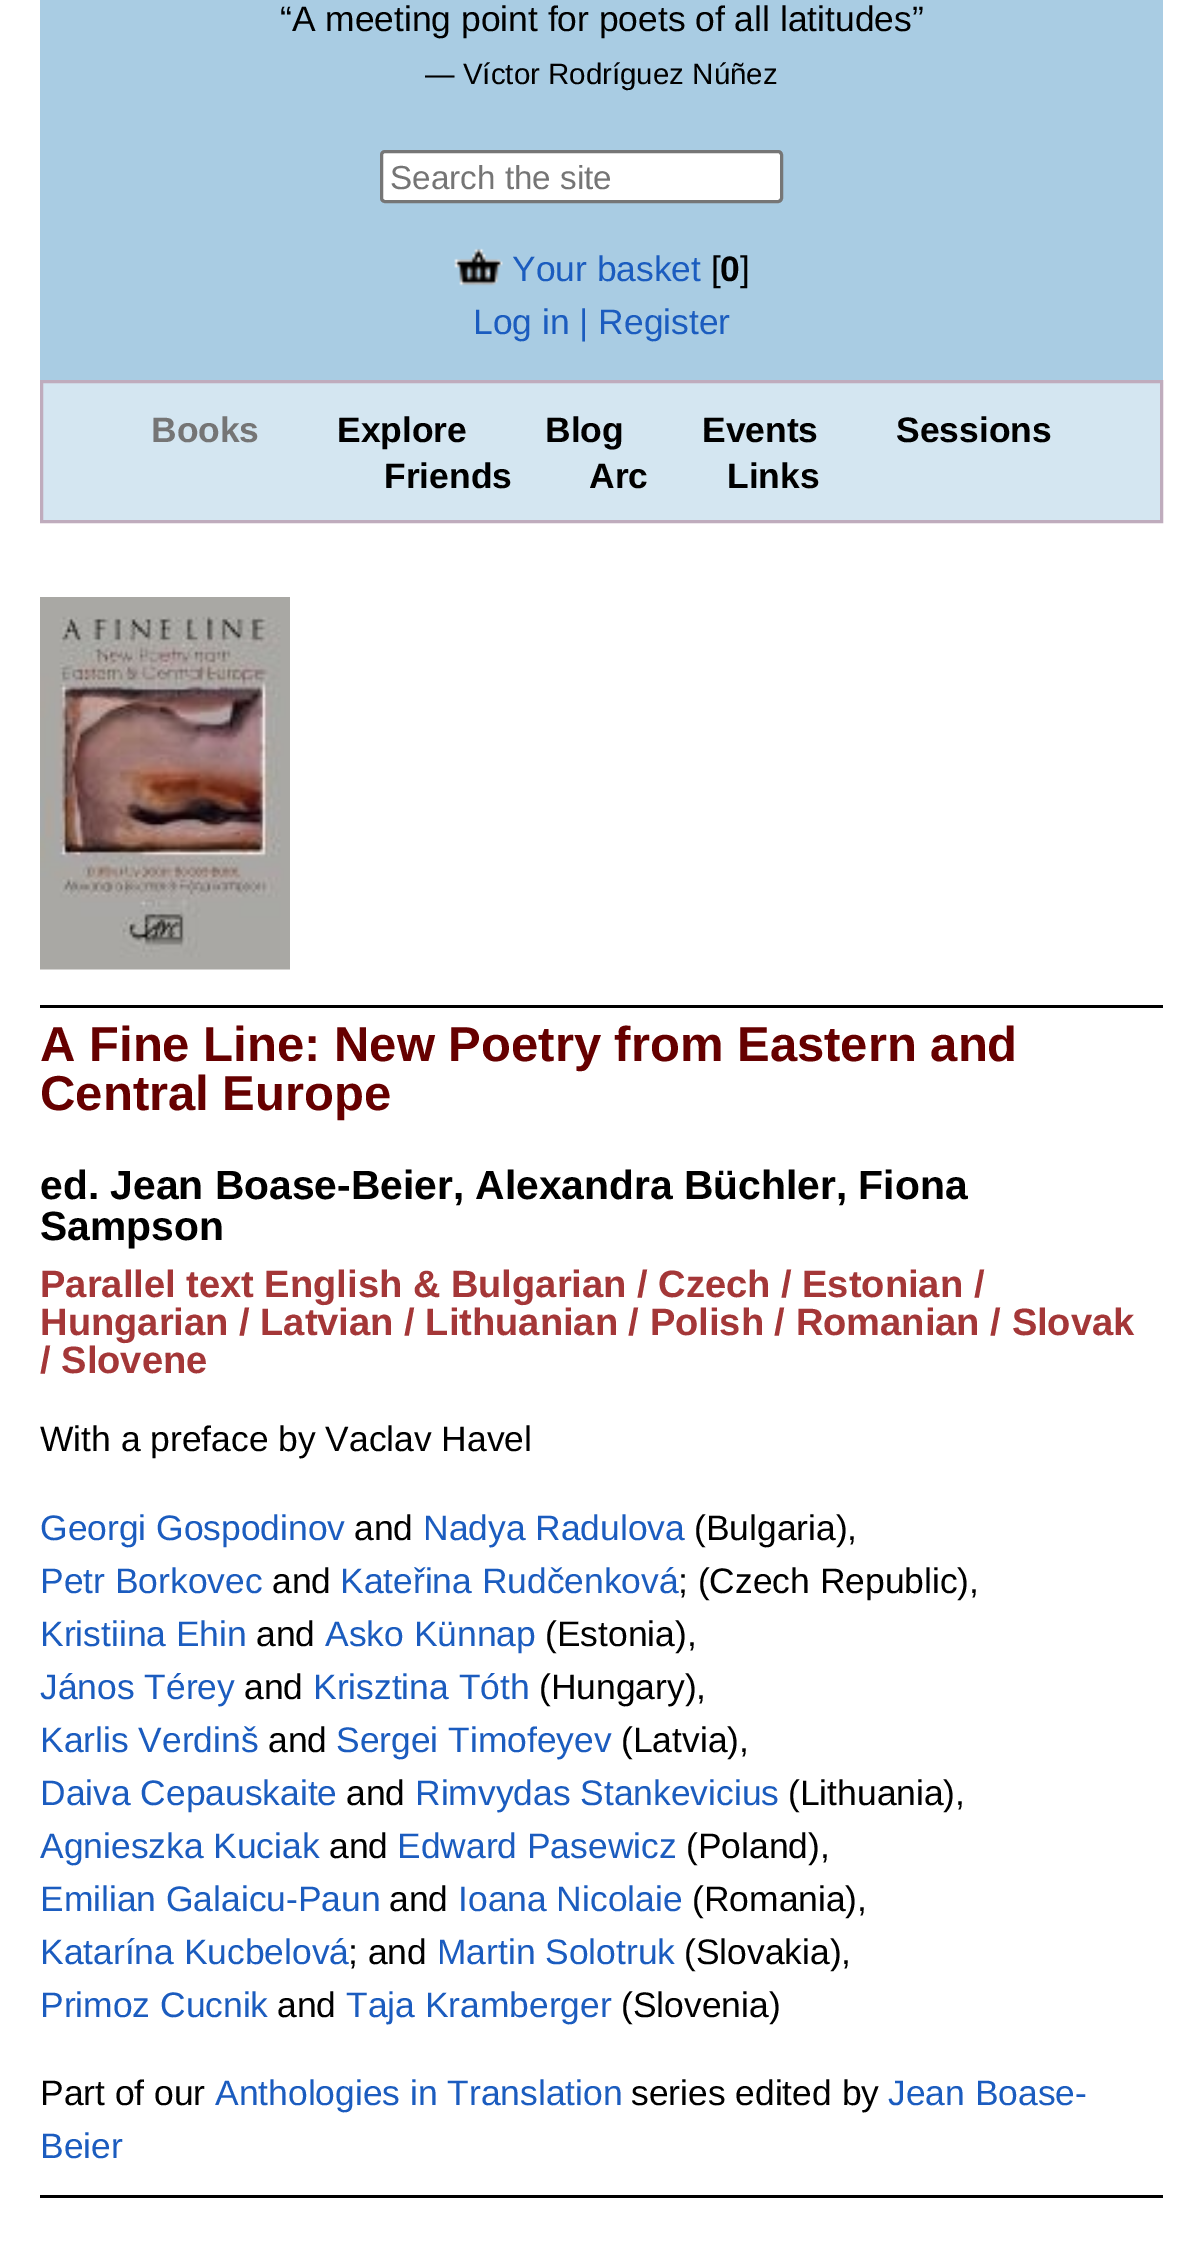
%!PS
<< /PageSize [1202 2251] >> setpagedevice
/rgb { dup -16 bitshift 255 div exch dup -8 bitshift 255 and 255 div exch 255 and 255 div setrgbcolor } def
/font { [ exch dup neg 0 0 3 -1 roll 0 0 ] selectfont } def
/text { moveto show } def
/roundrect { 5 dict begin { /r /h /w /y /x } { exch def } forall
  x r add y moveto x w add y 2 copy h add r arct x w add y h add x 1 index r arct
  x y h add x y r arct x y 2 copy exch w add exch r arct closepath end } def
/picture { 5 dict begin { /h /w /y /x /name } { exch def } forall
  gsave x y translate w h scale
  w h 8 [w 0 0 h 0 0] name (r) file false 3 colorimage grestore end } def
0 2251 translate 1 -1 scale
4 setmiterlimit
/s1 { /LiberationSans-Regular 35.4 font 16#000000 rgb } def
/s2 { /LiberationSans-Regular 29.5 font 16#000000 rgb } def
/s3 { /LiberationSans-Regular 33.25 font 16#757575 rgb } def
/s4 { /LiberationSans-Regular 35.4 font 16#1B5CBF rgb } def
/s5 { /LiberationSans-Bold 35.4 font 16#000000 rgb } def
/s6 { /LiberationSans-Bold 35.4 font 16#757575 rgb } def
/s7 { /LiberationSans-Bold 49 font 16#660000 rgb } def
/s8 { /LiberationSans-Bold 40.8 font 16#000000 rgb } def
/s9 { /LiberationSans-Bold 38.1 font 16#A43738 rgb } def
16#FFFFFF rgb
0 0 1202 2251 rectfill
16#A9CCE3 rgb
40 0 1123 380 rectfill
s1
(“A meeting point for poets of all latitudes”) 280 31 text
s2
(— Víctor Rodríguez Núñez) 425 84 text
16#FFFFFF rgb
381.5 151.5 400 50 3.5 roundrect gsave fill grestore
16#767676 rgb
3 setlinewidth
stroke
s3
(Search the site) 390 189 text
(pic1.raw) 454 248 49 38 picture
s4
(Your basket) 512 281 text
s1
([) 711 281 text
s5
(0) 720 281 text
s1
(]) 740 281 text
s4
(Log in | Register) 473 334 text
16#D4E6F1 rgb
41.5 381.5 moveto 1161.5 381.5 lineto 1161.5 521.5 lineto 41.5 521.5 lineto closepath gsave fill grestore
16#BFACBD rgb
stroke
s6
(Books) 151 442 text
s5
(Explore) 337 442 text
(Blog) 545 442 text
(Events) 702 442 text
(Sessions) 896 442 text
(Friends) 384 488 text
(Arc) 589 488 text
(Links) 727 488 text
(pic2.raw) 40 597 250 373 picture
40 1005 1123 3 rectfill
40 2195 1123 3 rectfill
s7
(A Fine Line: New Poetry from Eastern and) 40 1061 text
(Central Europe) 40 1110 text
s8
(ed. Jean Boase-Beier, Alexandra Büchler, Fiona) 40 1199 text
(Sampson) 40 1240 text
s9
(Parallel text English & Bulgarian / Czech / Estonian /) 40 1297 text
(Hungarian / Latvian / Lithuanian / Polish / Romanian / Slovak) 40 1335 text
(/ Slovene) 40 1373 text
s1
(With a preface by Vaclav Havel) 40 1451 text
s4
(Georgi Gospodinov) 40 1540 text
s1
(and) 354 1540 text
s4
(Nadya Radulova) 423 1540 text
s1
(\(Bulgaria\),) 694 1540 text
s4
(Petr Borkovec) 40 1593 text
s1
(and) 272 1593 text
s4
(Kateřina Rudčenková) 340 1593 text
s1
(; \(Czech Republic\),) 678 1593 text
s4
(Kristiina Ehin) 40 1646 text
s1
(and) 256 1646 text
s4
(Asko Künnap) 325 1646 text
s1
(\(Estonia\),) 545 1646 text
s4
(János Térey) 40 1699 text
s1
(and) 244 1699 text
s4
(Krisztina Tóth) 313 1699 text
s1
(\(Hungary\),) 539 1699 text
s4
(Karlis Verdinš) 40 1752 text
s1
(and) 268 1752 text
s4
(Sergei Timofeyev) 336 1752 text
s1
(\(Latvia\),) 621 1752 text
s4
(Daiva Cepauskaite) 40 1805 text
s1
(and) 346 1805 text
s4
(Rimvydas Stankevicius) 415 1805 text
s1
(\(Lithuania\),) 788 1805 text
s4
(Agnieszka Kuciak) 40 1858 text
s1
(and) 329 1858 text
s4
(Edward Pasewicz) 397 1858 text
s1
(\(Poland\),) 686 1858 text
s4
(Emilian Galaicu-Paun) 40 1911 text
s1
(and) 389 1911 text
s4
(Ioana Nicolaie) 458 1911 text
s1
(\(Romania\),) 692 1911 text
s4
(Katarína Kucbelová) 40 1964 text
s1
(; and) 348 1964 text
s4
(Martin Solotruk) 437 1964 text
s1
(\(Slovakia\),) 684 1964 text
s4
(Primoz Cucnik) 40 2017 text
s1
(and) 277 2017 text
s4
(Taja Kramberger) 346 2017 text
s1
(\(Slovenia\)) 621 2017 text
(Part of our) 40 2105 text
s4
(Anthologies in Translation) 215 2105 text
s1
(series edited by) 631 2105 text
s4
(Jean Boase-) 888 2105 text
(Beier) 40 2158 text
showpage
